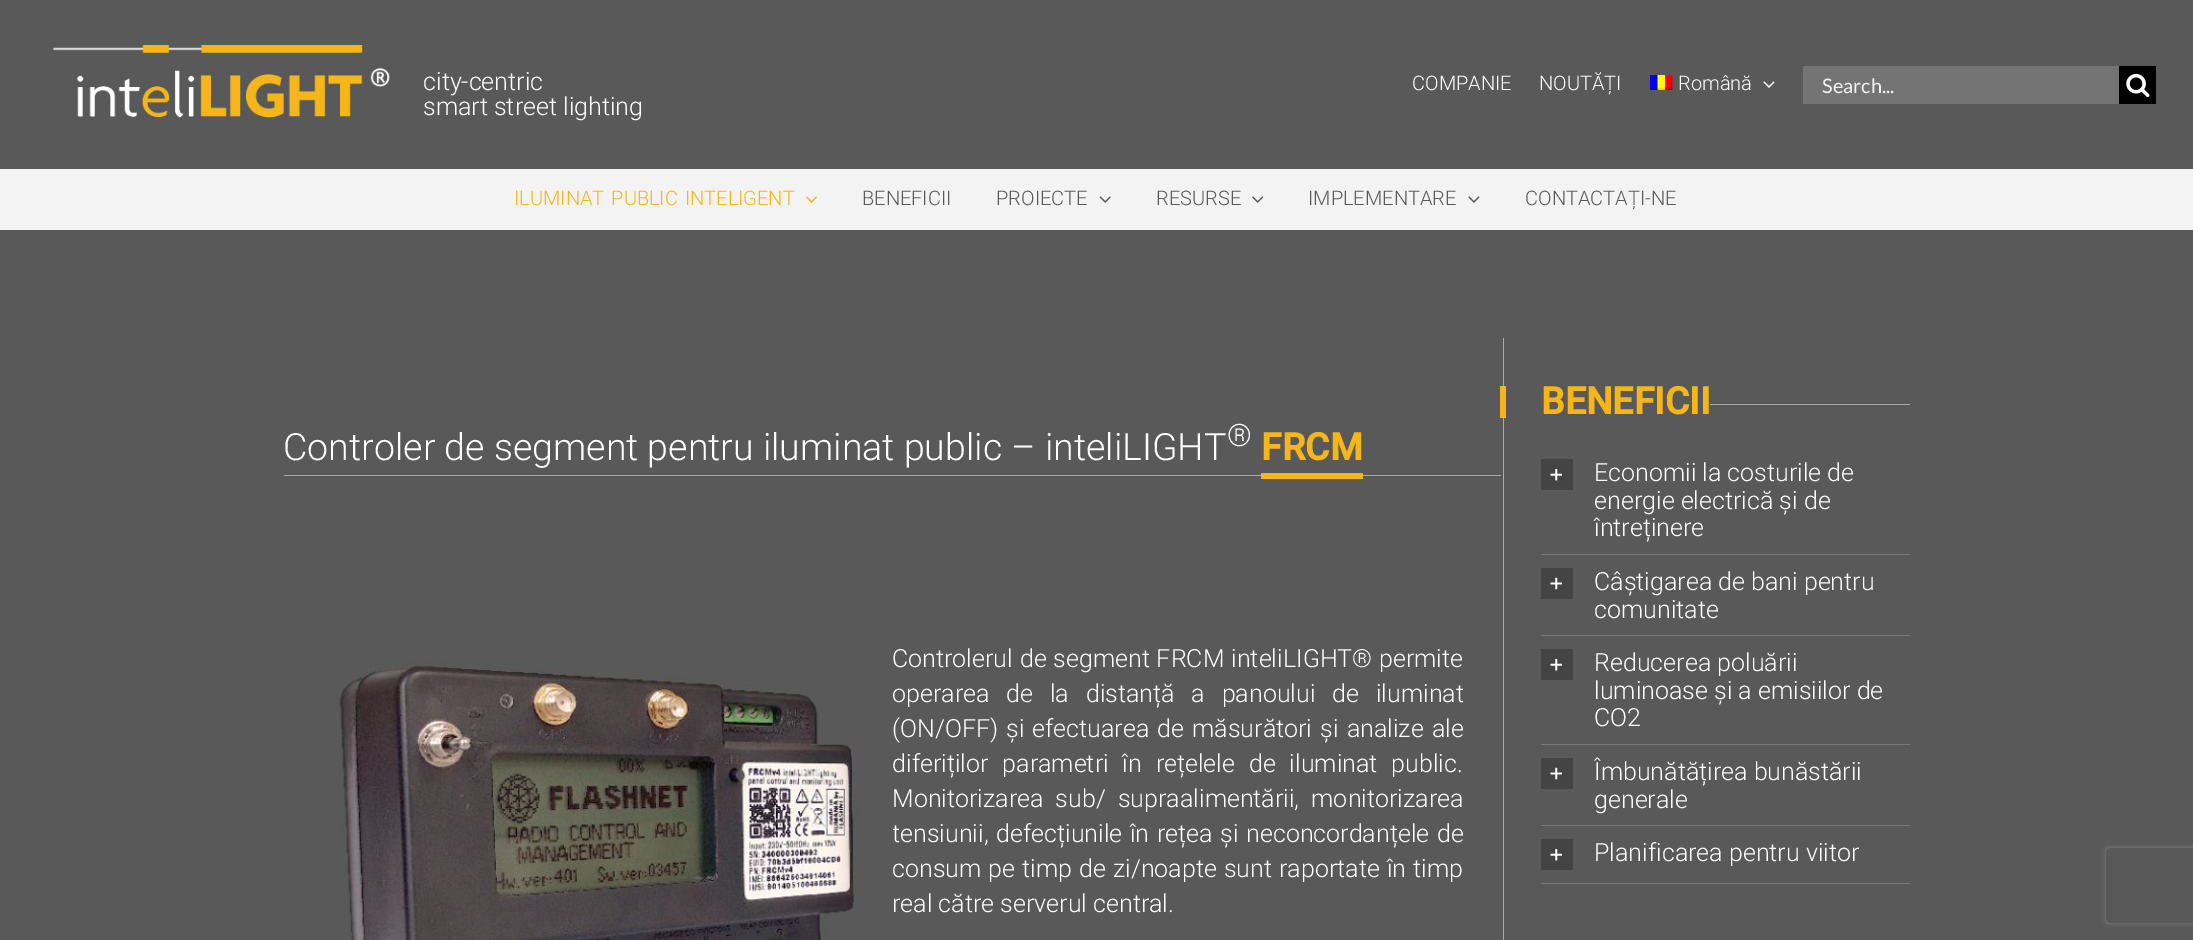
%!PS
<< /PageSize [2193 940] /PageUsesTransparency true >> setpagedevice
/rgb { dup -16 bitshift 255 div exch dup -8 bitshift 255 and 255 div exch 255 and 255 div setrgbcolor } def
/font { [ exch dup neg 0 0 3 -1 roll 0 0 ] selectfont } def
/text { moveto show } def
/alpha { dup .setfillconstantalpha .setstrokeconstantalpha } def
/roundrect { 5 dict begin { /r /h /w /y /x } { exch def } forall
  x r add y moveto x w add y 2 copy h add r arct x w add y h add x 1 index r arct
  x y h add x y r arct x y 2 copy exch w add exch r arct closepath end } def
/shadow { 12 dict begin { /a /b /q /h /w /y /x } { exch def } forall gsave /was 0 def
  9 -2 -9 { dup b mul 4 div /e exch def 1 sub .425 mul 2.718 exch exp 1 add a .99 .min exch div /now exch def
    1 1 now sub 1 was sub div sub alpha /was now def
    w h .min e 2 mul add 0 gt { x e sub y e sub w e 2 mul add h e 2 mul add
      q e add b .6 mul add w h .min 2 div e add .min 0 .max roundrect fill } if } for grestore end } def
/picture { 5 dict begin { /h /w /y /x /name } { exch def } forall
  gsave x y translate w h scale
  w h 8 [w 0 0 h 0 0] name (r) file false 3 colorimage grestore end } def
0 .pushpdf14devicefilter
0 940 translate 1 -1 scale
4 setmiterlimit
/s1 { /Roboto-Light 25 font 16#FFFFFF rgb } def
/s2 { /Roboto-Light 20 font 16#FFFFFF rgb } def
/s3 { /Lato-Regular 20 font 16#F3F3F3 rgb } def
/s4 { /Roboto-Light 20 font 16#595959 rgb } def
/s5 { /Roboto-Light 37.5 font 16#FFFFFF rgb } def
/s6 { /Roboto-Light 31 font 16#FFFFFF rgb } def
/s7 { /Roboto-Bold 37.5 font 16#F5B61A rgb } def
16#595959 rgb
0 0 2193 940 rectfill
(pic1.raw) 53 42 337 76 picture
s1
(city-centric) 423 90 text
(smart street lighting) 423 115 text
s2
(COMPANIE) 1412 90 text
(NOUTĂȚI) 1539 90 text
(pic2.raw) 1650 75 23 15 picture
(Română) 1678 90 text
(pic3.raw) 1763 81 12 7 picture
16#747474 rgb
1803 66 316 38 rectfill
s3
(Search...) 1822 93 text
16#000000 rgb
2119 66 37 38 rectfill
(pic4.raw) 2126 73 24 25 picture
16#F3F3F3 rgb
0 169 2193 61 rectfill
/Roboto-Light 20 font
16#F5B61A rgb
514 205 moveto 2 0 32 (ILUMINAT PUBLIC INTELIGENT) widthshow
(pic5.raw) 805 196 12 7 picture
s4
(BENEFICII) 862 205 text
(PROIECTE) 996 205 text
(pic6.raw) 1099 196 12 7 picture
(RESURSE) 1156 205 text
(pic7.raw) 1252 196 12 7 picture
(IMPLEMENTARE) 1308 205 text
(pic8.raw) 1468 196 12 7 picture
(CONTACTAȚI-NE) 1525 205 text
16#ABABAB rgb
1503 338 1 602 rectfill
s5
(Controler de segment pentru iluminat public – inteliLIGHT) 283 460 text
s6
(®) 1227 446 text
s7
(FRCM) 1261 460 text
16#ABABAB rgb
284 475 1217 1 rectfill
16#F5B61A rgb
1261 473 102 6 rectfill
/Roboto-Light 25 font
16#FFFFFF rgb
892 702 moveto 10.75 0 32 (operarea de la distanță a panoului de iluminat) widthshow
892 842 moveto 1.5 0 32 (tensiunii, defecțiunile în rețea și neconcordanțele de) widthshow
(pic9.raw) 339 661 554 279 picture
892 667 moveto 0.75 0 32 (Controlerul de segment FRCM inteliLIGHT® permite) widthshow
892 737 moveto 2 0 32 (\(ON/OFF\) și efectuarea de măsurători și analize ale) widthshow
892 772 moveto 7.75 0 32 (diferiților parametri în rețelele de iluminat public.) widthshow
892 807 moveto 6 0 32 (Monitorizarea sub/ supraalimentării, monitorizarea) widthshow
892 877 moveto 1 0 32 (consum pe timp de zi/noapte sunt raportate în timp) widthshow
(real către serverul central.) 892 912 text
16#F5B61A rgb
1500 386 6 32 rectfill
s7
(BENEFICII) 1541 414 text
16#ABABAB rgb
1710 404 200 1 rectfill
16#777777 rgb
1541 554 369 1 rectfill
16#444444 rgb
1541 459 32 31 rectfill
(pic10.raw) 1550 469 12 12 picture
s1
(Economii la costurile de) 1594 481 text
(energie electrică și de) 1594 509 text
(întreținere) 1594 536 text
16#777777 rgb
1541 635 369 1 rectfill
16#444444 rgb
1541 568 32 31 rectfill
(pic11.raw) 1550 577 12 13 picture
s1
(Câștigarea de bani pentru) 1594 590 text
(comunitate) 1594 618 text
16#777777 rgb
1541 744 369 1 rectfill
16#444444 rgb
1541 649 32 31 rectfill
(pic10.raw) 1550 659 12 12 picture
s1
(Reducerea poluării) 1594 671 text
(luminoase și a emisiilor de) 1594 699 text
(CO2) 1594 726 text
16#777777 rgb
1541 825 369 1 rectfill
16#444444 rgb
1541 758 32 31 rectfill
(pic11.raw) 1550 767 12 13 picture
s1
(Îmbunătățirea bunăstării) 1594 780 text
(generale) 1594 808 text
16#777777 rgb
1541 883 369 1 rectfill
16#444444 rgb
1541 839 32 31 rectfill
(pic10.raw) 1550 849 12 12 picture
s1
(Planificarea pentru viitor) 1594 861 text
gsave
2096 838 moveto 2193 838 lineto 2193 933 lineto 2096 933 lineto closepath 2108.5 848 moveto 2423.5 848 lineto 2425 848 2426 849 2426 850.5 curveto 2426 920.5 lineto 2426 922 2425 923 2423.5 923 curveto 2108.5 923 lineto 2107 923 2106 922 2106 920.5 curveto 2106 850.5 lineto 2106 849 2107 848 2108.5 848 curveto closepath eoclip newpath
16#808080 rgb
2106 848 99 75 2.5 3 1 shadow
grestore
.poppdf14devicefilter showpage
